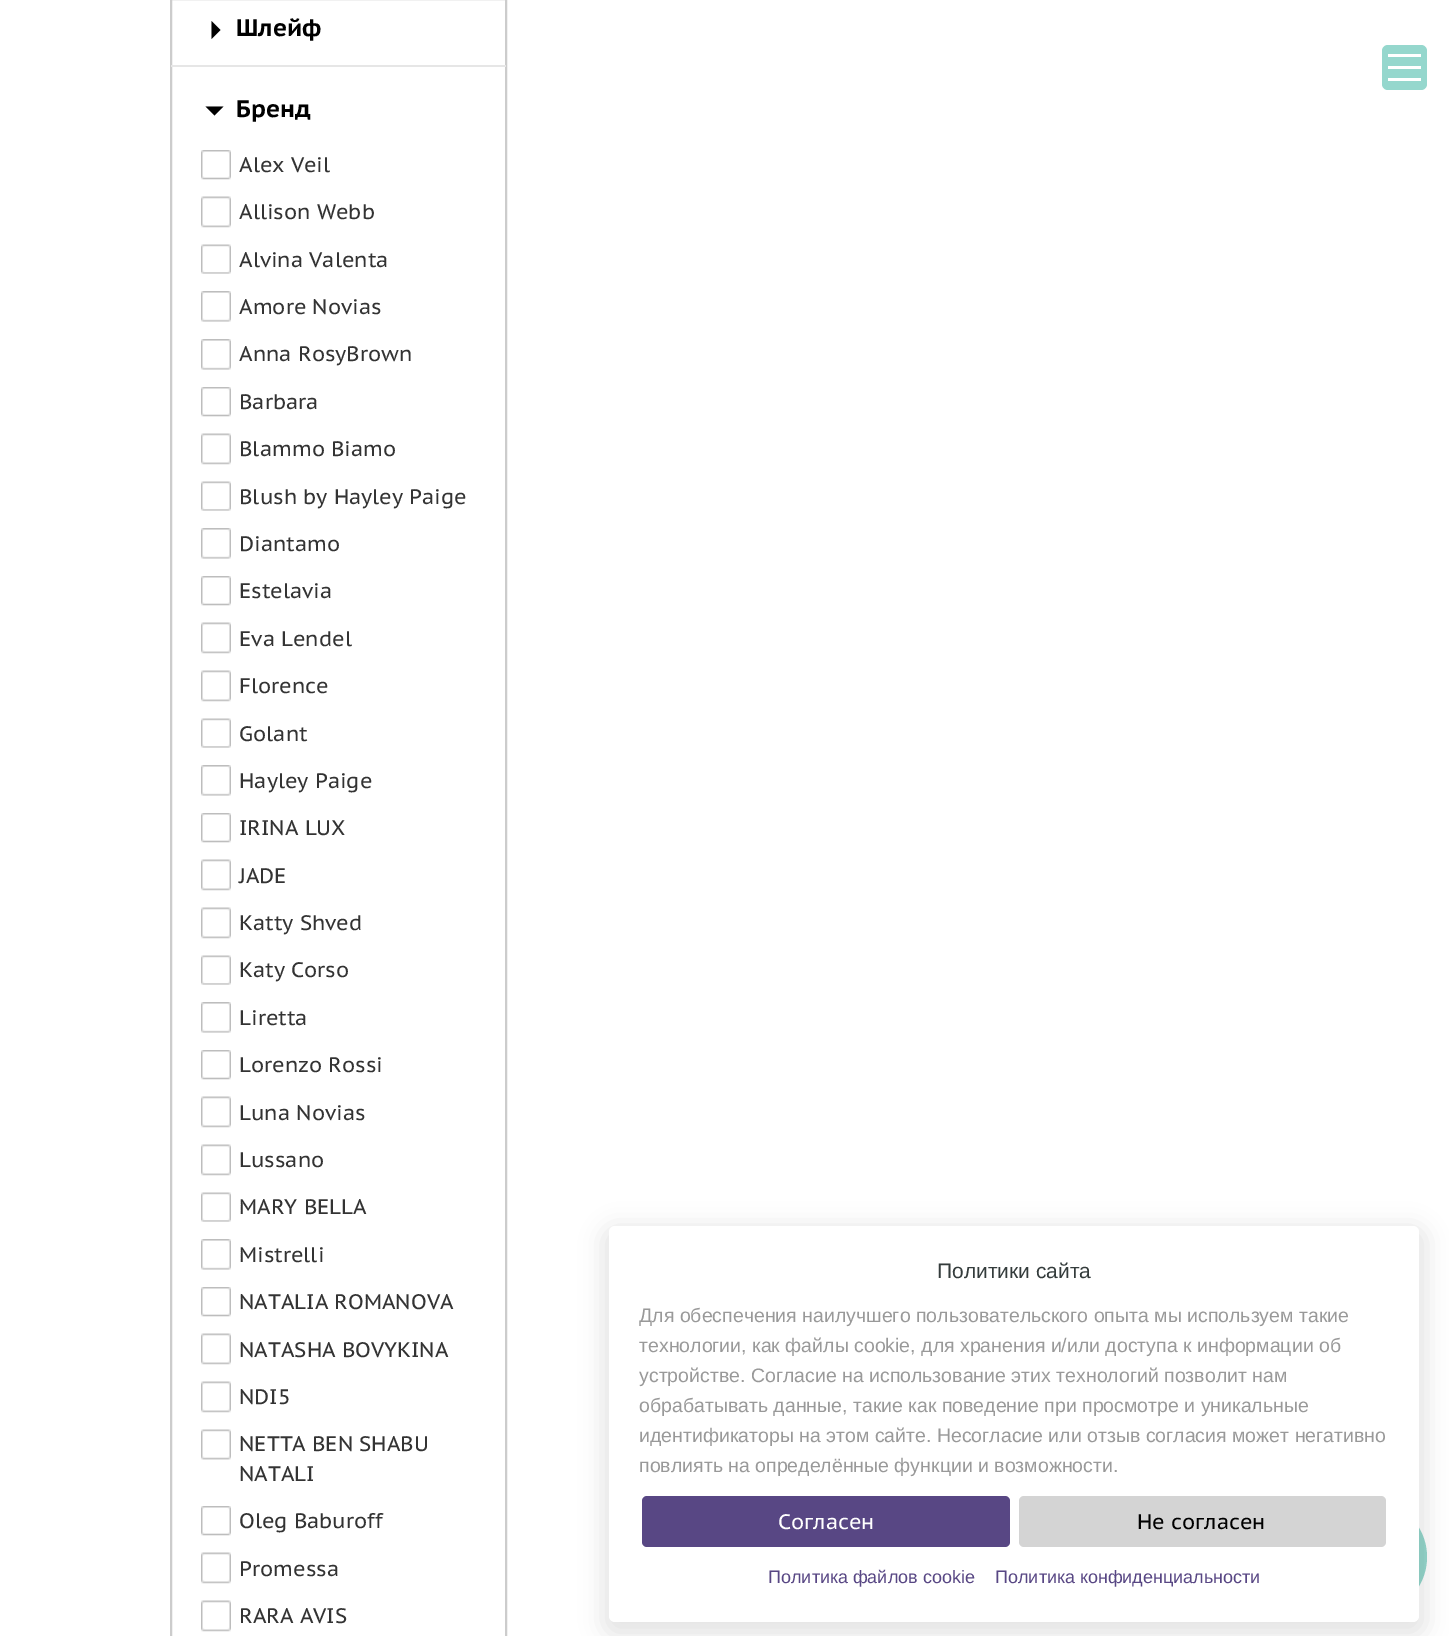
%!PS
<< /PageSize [1449 1636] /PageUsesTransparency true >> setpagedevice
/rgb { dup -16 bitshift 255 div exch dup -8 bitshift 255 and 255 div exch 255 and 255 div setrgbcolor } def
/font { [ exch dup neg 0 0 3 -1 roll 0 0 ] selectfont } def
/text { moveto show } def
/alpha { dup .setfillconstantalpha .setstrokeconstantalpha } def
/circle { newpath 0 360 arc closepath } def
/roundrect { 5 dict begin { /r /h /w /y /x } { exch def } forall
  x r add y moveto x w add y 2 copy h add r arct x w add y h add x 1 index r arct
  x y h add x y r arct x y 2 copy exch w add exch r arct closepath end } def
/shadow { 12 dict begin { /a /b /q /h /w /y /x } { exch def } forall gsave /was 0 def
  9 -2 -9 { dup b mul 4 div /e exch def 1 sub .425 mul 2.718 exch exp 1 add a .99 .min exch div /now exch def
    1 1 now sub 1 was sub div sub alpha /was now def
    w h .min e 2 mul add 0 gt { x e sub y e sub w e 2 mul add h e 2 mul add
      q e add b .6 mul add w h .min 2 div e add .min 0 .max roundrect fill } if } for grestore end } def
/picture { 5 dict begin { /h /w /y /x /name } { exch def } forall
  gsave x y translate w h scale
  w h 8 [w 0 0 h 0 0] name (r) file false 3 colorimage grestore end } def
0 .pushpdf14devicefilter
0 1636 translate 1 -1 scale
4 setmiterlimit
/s1 { /PTSansCaption-Bold 24 font 16#000000 rgb } def
/s2 { /PTSansCaption-Regular 21 font 16#333333 rgb } def
/s3 { /LiberationSans-Regular 21 font 16#343C3C rgb } def
/s4 { /LiberationSans-Regular 19.5 font 16#999999 rgb } def
/s5 { /PTSansCaption-Regular 21 font 16#FFFFFF rgb } def
/s6 { /PTSansCaption-Regular 21 font 16#000000 rgb } def
/s7 { /LiberationSans-Regular 18 font 16#584784 rgb } def
16#FFFFFF rgb
0 0 1449 1636 rectfill
16#CCCCCC rgb
2 setlinewidth
171 -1 335 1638 rectstroke
16#000000 rgb
211.5 39 moveto 211.5 21 lineto 220.5 30 lineto closepath fill
s1
(Шлейф) 236 36 text
16#E6E6E6 rgb
171 65 335 2 rectfill
16#000000 rgb
205.5 106.5 moveto 223.5 106.5 lineto 214.5 115.5 lineto closepath fill
(Бренд) 236 117 text
(pic1.raw) 201 150 30 30 picture
s2
(Alex Veil) 239 172 text
(pic2.raw) 201 196 30 32 picture
(Allison Webb) 239 219 text
(pic3.raw) 201 244 30 30 picture
(Alvina Valenta) 239 267 text
(pic4.raw) 201 291 30 31 picture
(Amore Novias) 239 314 text
(pic4.raw) 201 339 30 31 picture
(Anna RosyBrown) 239 361 text
(pic1.raw) 201 387 30 30 picture
(Barbara) 239 409 text
(pic2.raw) 201 433 30 32 picture
(Blammo Biamo) 239 456 text
(pic3.raw) 201 481 30 30 picture
(Blush by Hayley Paige) 239 504 text
(pic4.raw) 201 528 30 31 picture
(Diantamo) 239 551 text
(pic1.raw) 201 576 30 30 picture
(Estelavia) 239 598 text
(pic2.raw) 201 622 30 32 picture
(Eva Lendel) 239 646 text
(pic2.raw) 201 670 30 32 picture
(Florence) 239 693 text
(pic3.raw) 201 718 30 30 picture
(Golant) 239 741 text
(pic4.raw) 201 765 30 31 picture
(Hayley Paige) 239 788 text
(pic1.raw) 201 813 30 30 picture
(IRINA LUX) 239 835 text
(pic2.raw) 201 859 30 32 picture
(JADE) 239 883 text
(pic2.raw) 201 907 30 32 picture
(Katty Shved) 239 930 text
(pic3.raw) 201 955 30 30 picture
(Katy Corso) 239 977 text
(pic4.raw) 201 1002 30 31 picture
(Liretta) 239 1025 text
(pic1.raw) 201 1050 30 30 picture
(Lorenzo Rossi) 239 1072 text
(pic2.raw) 201 1096 30 32 picture
(Luna Novias) 239 1120 text
(pic2.raw) 201 1144 30 32 picture
(Lussano) 239 1167 text
(pic3.raw) 201 1192 30 30 picture
(MARY BELLA) 239 1214 text
(pic4.raw) 201 1239 30 31 picture
(Mistrelli) 239 1262 text
(pic1.raw) 201 1287 30 30 picture
(NATALIA ROMANOVA) 239 1309 text
(pic2.raw) 201 1333 30 32 picture
(NATASHA BOVYKINA) 239 1357 text
(pic2.raw) 201 1381 30 32 picture
(NDI5) 239 1404 text
(pic5.raw) 201 1429 30 31 picture
(NETTA BEN SHABU) 239 1451 text
(NATALI) 239 1481 text
(pic1.raw) 201 1506 30 30 picture
(Oleg Baburoff) 239 1528 text
(pic2.raw) 201 1552 30 32 picture
(Promessa) 239 1576 text
(pic2.raw) 201 1600 30 32 picture
(RARA AVIS) 239 1623 text
16#95D7CD rgb
1382 45 45 45 6 roundrect fill
16#FFFFFF rgb
1388 54 33 3 rectfill
1388 66 33 3 rectfill
1388 78 33 3 rectfill
16#95D7CD rgb
1370 1557 57 circle fill
16#000000 rgb
602 1226 825 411 14 11 0.1 shadow
16#FFFFFF rgb
609 1226 810 396 6 roundrect fill
s3
(Политики сайта) 937 1278 text
s4
(Для обеспечения наилучшего пользовательского опыта мы используем такие) 639 1322 text
(технологии, как файлы cookie, для хранения и/или доступа к информации об) 639 1352 text
(устройстве. Согласие на использование этих технологий позволит нам) 639 1382 text
(обрабатывать данные, такие как поведение при просмотре и уникальные) 639 1412 text
(идентификаторы на этом сайте. Несогласие или отзыв согласия может негативно) 639 1442 text
(повлиять на определённые функции и возможности.) 639 1472 text
16#584784 rgb
642 1496 368 51 5 roundrect fill
s5
(Согласен) 778 1529 text
16#D4D4D4 rgb
1019 1496 367 51 5 roundrect fill
s6
(Не согласен) 1137 1529 text
s7
(Политика файлов cookie) 768 1583 text
(Политика конфиденциальности) 995 1583 text
.poppdf14devicefilter showpage
